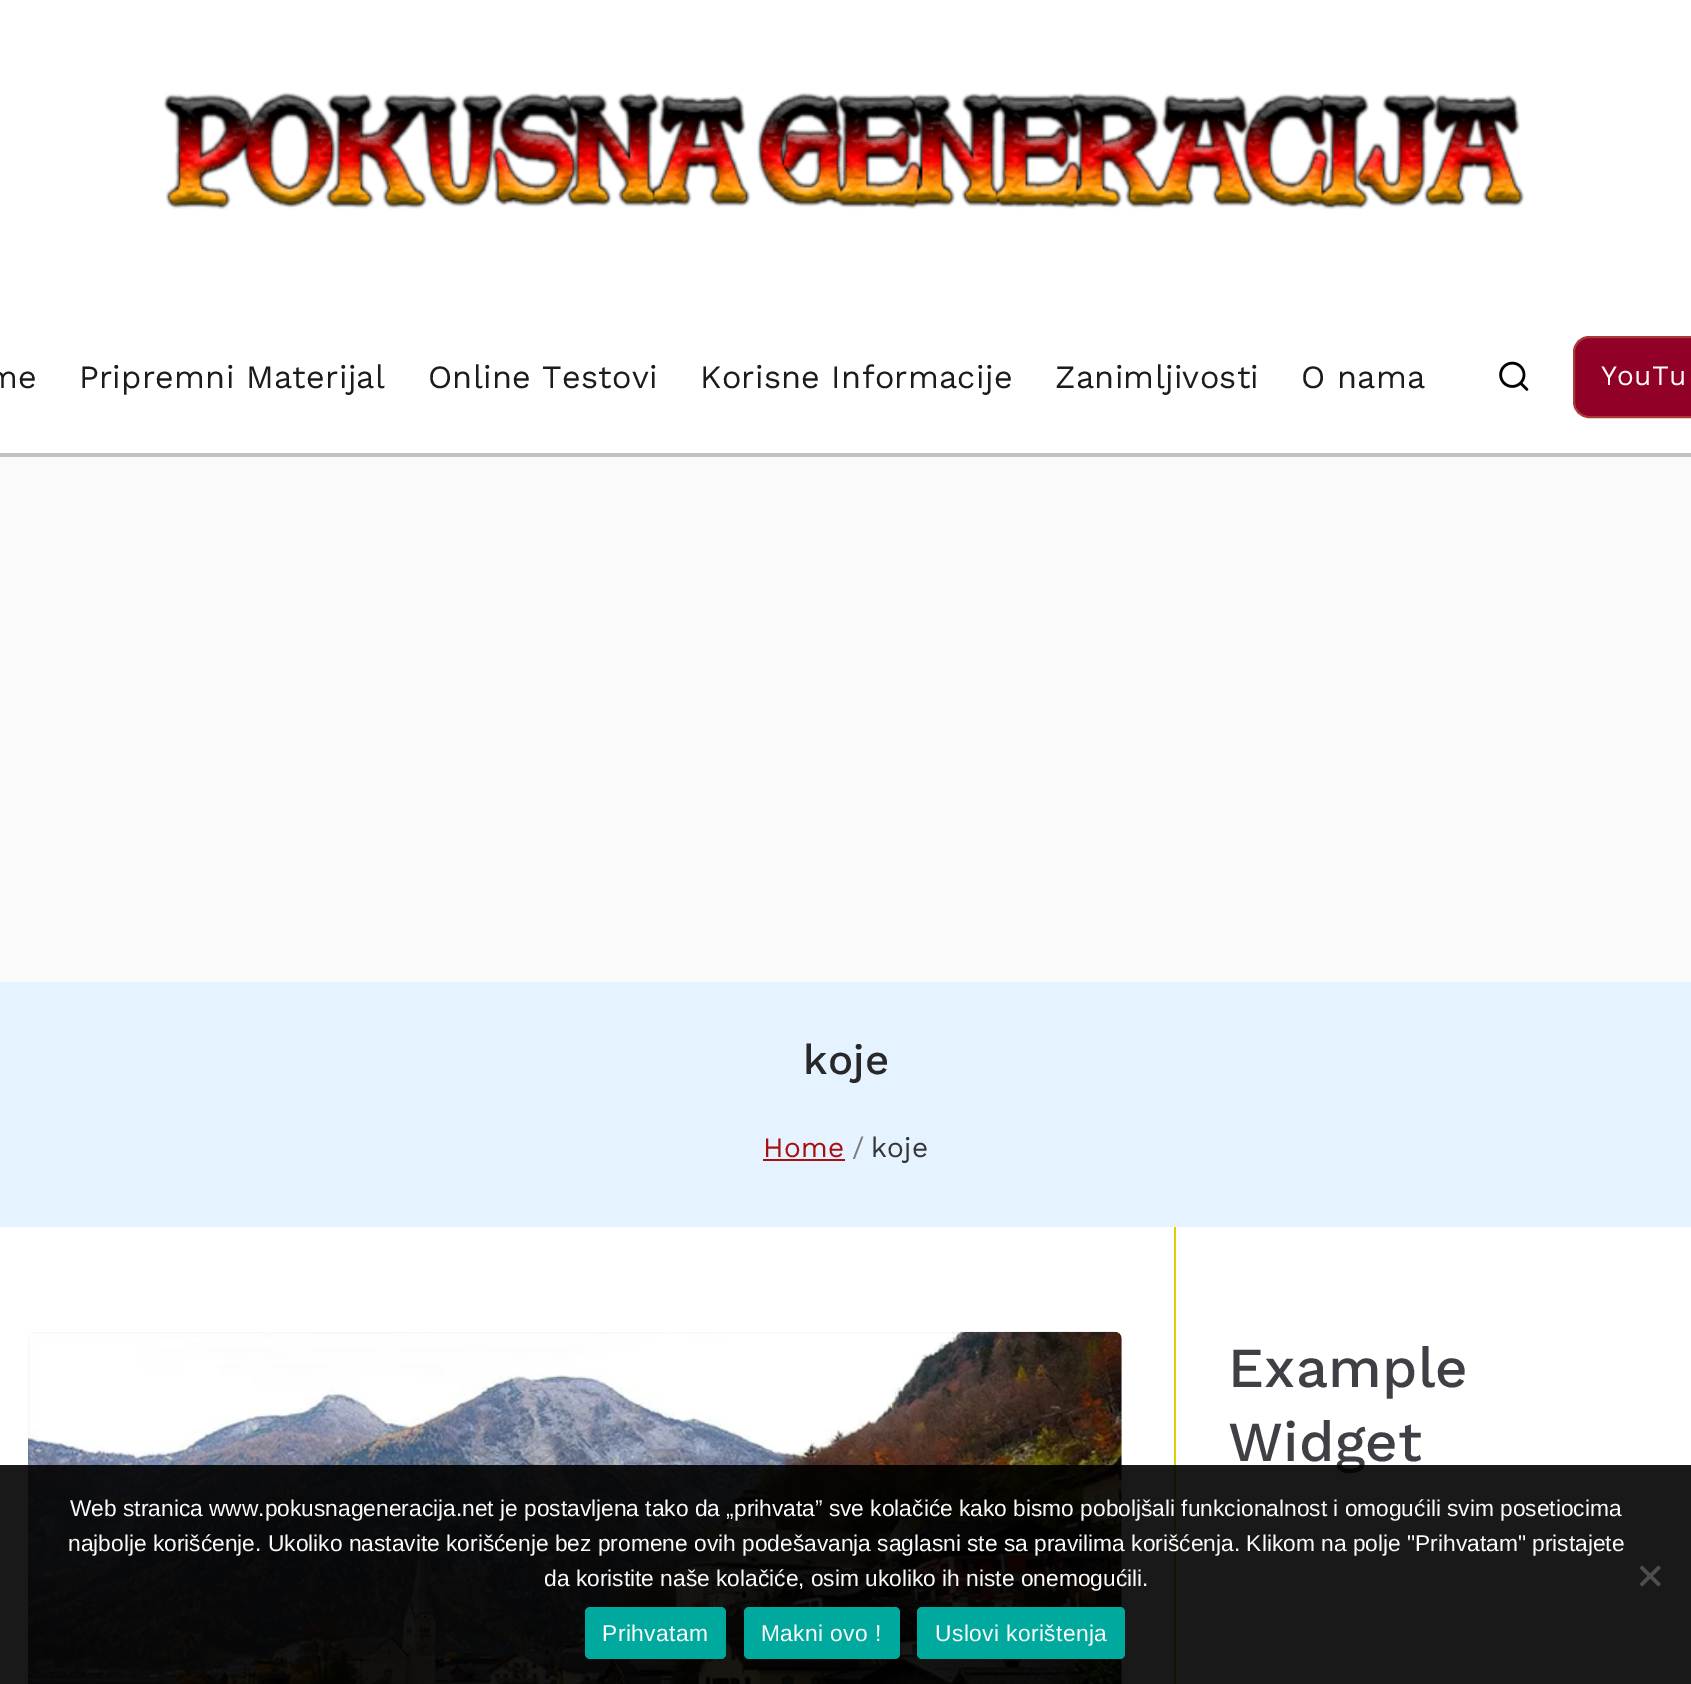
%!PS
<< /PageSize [1691 1684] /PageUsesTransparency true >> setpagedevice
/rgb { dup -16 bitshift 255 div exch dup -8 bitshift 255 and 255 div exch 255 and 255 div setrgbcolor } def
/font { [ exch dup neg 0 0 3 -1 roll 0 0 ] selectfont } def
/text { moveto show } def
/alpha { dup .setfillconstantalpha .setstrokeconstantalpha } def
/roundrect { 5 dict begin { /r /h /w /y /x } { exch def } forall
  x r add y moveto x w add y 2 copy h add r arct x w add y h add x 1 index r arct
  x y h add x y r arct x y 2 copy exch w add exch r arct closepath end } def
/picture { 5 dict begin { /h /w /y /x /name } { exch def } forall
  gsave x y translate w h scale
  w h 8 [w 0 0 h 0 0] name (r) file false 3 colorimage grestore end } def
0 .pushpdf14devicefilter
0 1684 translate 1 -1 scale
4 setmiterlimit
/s1 { /LiberationSans-Regular 22.75 font 16#FAFAFA rgb } def
16#FAFAFA rgb
0 0 1691 1684 rectfill
16#C0C3C6 rgb
0 453 1691 4 rectfill
16#FFFFFF rgb
0 0 1691 453 rectfill
(pic1.raw) 163 92 1362 118 picture
/WorkSans-Regular 32.4 font
16#1C1C1C rgb
-13 388 moveto 0.25 0 (me) ashow
79 388 moveto 0.25 0 (Pripremni Materijal) ashow
428 388 moveto 0.25 0 (Online Testovi) ashow
700 388 moveto 0.25 0 (Korisne Informacije) ashow
1055 388 moveto 0.25 0 (Zanimljivosti) ashow
1301 388 moveto 0.25 0 (O nama) ashow
(pic2.raw) 1499 361 30 30 picture
16#910026 rgb
1574 337 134 80 15 roundrect gsave fill grestore
16#A83A3A rgb
2 setlinewidth
stroke
/WorkSans-Regular 28 font
16#FAFAFA rgb
1601 385 moveto 0.25 0 (YouTu) ashow
16#E5F2FF rgb
0 982 1691 245 rectfill
/WorkSans-Medium 42 font
16#282828 rgb
803 1074 moveto 0.25 0 (koje) ashow
/WorkSans-Regular 28 font
16#A80F0F rgb
763 1157 moveto 0.25 0 (Home) ashow
763 1159 82 2 rectfill
16#7B7B7B rgb
852 1157 moveto 0.25 0 (/) ashow
16#353535 rgb
871 1157 moveto 0.25 0 (koje) ashow
16#FFFFFF rgb
0 1227 1691 457 rectfill
(pic3.raw) 28 1331 1094 353 picture
16#E0CE0B rgb
1174 1227 2 457 rectfill
/WorkSans-Medium 56.5 font
16#3F3F46 rgb
1228 1387 moveto 0.25 0 (Example) ashow
1228 1461 moveto 0.25 0 (Widget) ashow
0.9 alpha
16#000000 rgb
0 1465 1691 219 rectfill
1 alpha
s1
(Web stranica www.pokusnageneracija.net je postavljena tako da „prihvata” sve kolačiće kako bismo poboljšali funkcionalnost i omogućili svim posetiocima) 70 1516 text
(najbolje korišćenje. Ukoliko nastavite korišćenje bez promene ovih podešavanja saglasni ste sa pravilima korišćenja. Klikom na polje "Prihvatam" pristajete) 68 1551 text
(da koristite naše kolačiće, osim ukoliko ih niste onemogućili.) 544 1586 text
16#4D4D4D rgb
1658.5 1565.5 moveto 1661 1568 lineto 1642 1586.5 lineto 1639.5 1584 lineto closepath fill
1639.5 1568 moveto 1642 1565.5 lineto 1661 1584 lineto 1658.5 1586.5 lineto closepath fill
16#00A99D rgb
585 1607 141 52 5 roundrect fill
16#FAFAFA rgb
602 1641 moveto 0.4 0 (Prihvatam) ashow
16#00A99D rgb
744 1607 156 52 5 roundrect fill
16#FAFAFA rgb
761 1641 moveto 0.4 0 (Makni ovo !) ashow
16#00A99D rgb
917 1607 208 52 5 roundrect fill
16#FAFAFA rgb
935 1641 moveto 0.4 0 (Uslovi korištenja) ashow
.poppdf14devicefilter showpage
